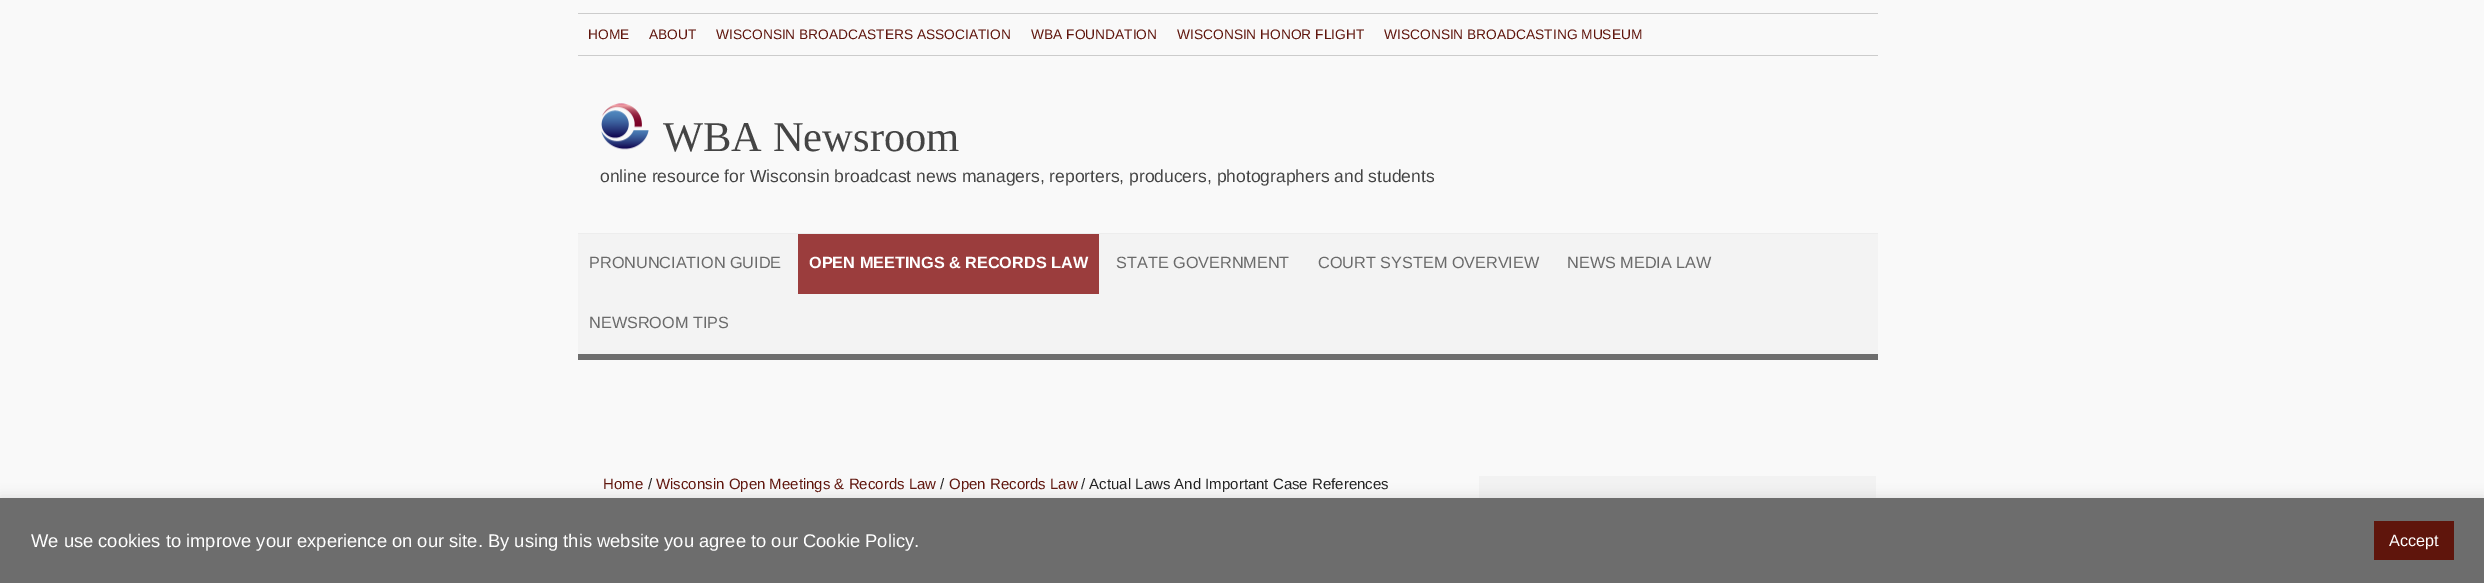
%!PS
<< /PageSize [2484 583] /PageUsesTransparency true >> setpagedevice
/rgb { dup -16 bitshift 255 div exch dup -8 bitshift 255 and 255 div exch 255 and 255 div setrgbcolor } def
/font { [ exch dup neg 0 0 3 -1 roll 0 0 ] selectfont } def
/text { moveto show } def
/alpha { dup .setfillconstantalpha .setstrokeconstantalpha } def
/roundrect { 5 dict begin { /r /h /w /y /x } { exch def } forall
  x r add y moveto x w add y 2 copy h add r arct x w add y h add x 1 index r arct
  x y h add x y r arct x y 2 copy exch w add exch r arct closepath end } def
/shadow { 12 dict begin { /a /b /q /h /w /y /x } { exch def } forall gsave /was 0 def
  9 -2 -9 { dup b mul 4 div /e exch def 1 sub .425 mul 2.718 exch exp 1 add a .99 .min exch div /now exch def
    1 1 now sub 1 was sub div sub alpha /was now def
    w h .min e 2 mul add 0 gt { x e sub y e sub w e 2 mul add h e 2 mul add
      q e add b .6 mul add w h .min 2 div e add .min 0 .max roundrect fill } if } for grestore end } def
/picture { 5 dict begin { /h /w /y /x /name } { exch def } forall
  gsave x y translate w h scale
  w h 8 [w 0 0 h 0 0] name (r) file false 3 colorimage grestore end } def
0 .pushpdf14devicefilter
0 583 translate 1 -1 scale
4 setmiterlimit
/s1 { /LiberationSans-Regular 13.75 font 16#5F150C rgb } def
/s2 { /LiberationSerif-Regular 42.5 font 16#444444 rgb } def
/s3 { /LiberationSans-Regular 17.5 font 16#444444 rgb } def
/s4 { /LiberationSans-Regular 16.25 font 16#6A6A6A rgb } def
/s5 { /LiberationSans-Bold 16.25 font 16#FFFFFF rgb } def
/s6 { /LiberationSans-Regular 15 font 16#5F150C rgb } def
/s7 { /LiberationSans-Regular 15 font 16#222222 rgb } def
/s8 { /LiberationSans-Regular 18.35 font 16#FFFFFF rgb } def
/s9 { /LiberationSans-Regular 16.25 font 16#FFFFFF rgb } def
16#F9F9F9 rgb
0 0 2484 583 rectfill
16#CCCCCC rgb
578 13 1300 1 rectfill
578 55 1300 1 rectfill
s1
(HOME) 588 39 text
(ABOUT) 649 39 text
(WISCONSIN BROADCASTERS ASSOCIATION) 716 39 text
(WBA FOUNDATION) 1031 39 text
(WISCONSIN HONOR FLIGHT) 1177 39 text
(WISCONSIN BROADCASTING MUSEUM) 1384 39 text
(pic1.raw) 601 103 48 47 picture
s2
(WBA Newsroom) 663 151 text
s3
(online resource for Wisconsin broadcast news managers, reporters, producers, photographers and students) 600 182 text
16#F3F3F3 rgb
578 234 1300 120 rectfill
16#EDEDED rgb
578 233 1300 1 rectfill
16#6D6D6D rgb
578 354 1300 6 rectfill
s4
(PRONUNCIATION GUIDE) 589 268 text
16#9B3D3D rgb
798 234 301 60 rectfill
s5
(OPEN MEETINGS & RECORDS LAW) 809 268 text
s4
(STATE GOVERNMENT) 1116 268 text
(COURT SYSTEM OVERVIEW) 1318 268 text
(NEWS MEDIA LAW) 1567 268 text
(NEWSROOM TIPS) 589 328 text
s6
(Home) 603 489 text
s7
(/) 648 489 text
s6
(Wisconsin Open Meetings & Records Law) 656 489 text
s7
(/) 940 489 text
s6
(Open Records Law) 949 489 text
s7
(/ Actual Laws And Important Case References) 1081 489 text
16#F2F2F2 rgb
1479 476 397 22 rectfill
16#ACABAB rgb
0 496 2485 87 0 6 0.3 shadow
16#6D6D6D rgb
0 498 2484 85 rectfill
s8
(We use cookies to improve your experience on our site. By using this website you agree to our Cookie Policy.) 31 547 text
16#5F150C rgb
2374 521 80 39 rectfill
s9
(Accept) 2389 546 text
.poppdf14devicefilter showpage
